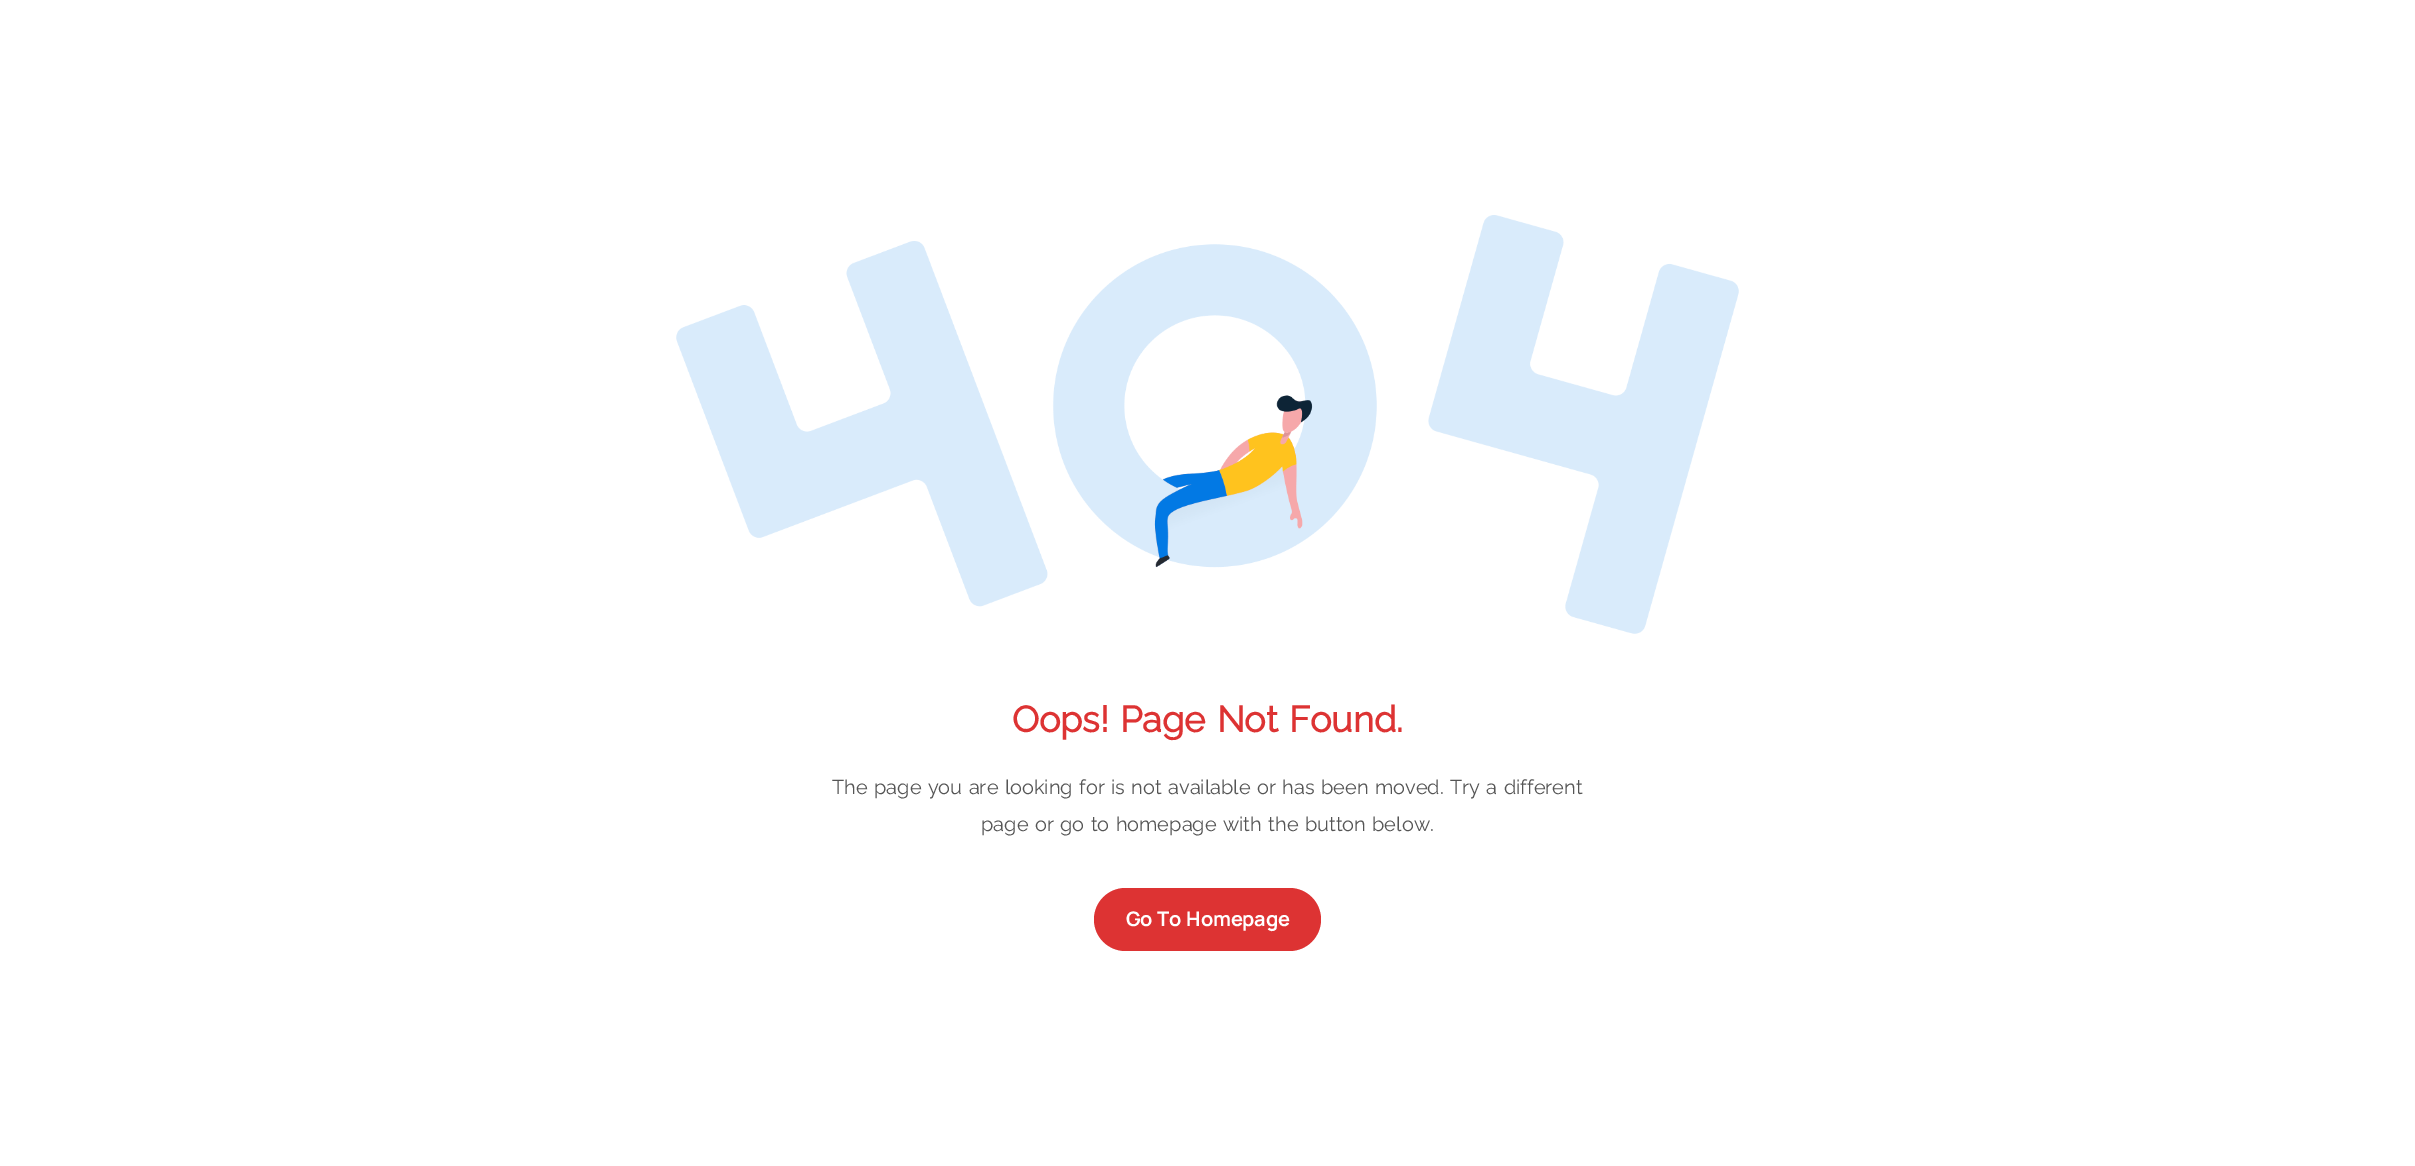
%!PS
<< /PageSize [2415 1166] >> setpagedevice
/rgb { dup -16 bitshift 255 div exch dup -8 bitshift 255 and 255 div exch 255 and 255 div setrgbcolor } def
/font { [ exch dup neg 0 0 3 -1 roll 0 0 ] selectfont } def
/roundrect { 5 dict begin { /r /h /w /y /x } { exch def } forall
  x r add y moveto x w add y 2 copy h add r arct x w add y h add x 1 index r arct
  x y h add x y r arct x y 2 copy exch w add exch r arct closepath end } def
/picture { 5 dict begin { /h /w /y /x /name } { exch def } forall
  gsave x y translate w h scale
  w h 8 [w 0 0 h 0 0] name (r) file false 3 colorimage grestore end } def
0 1166 translate 1 -1 scale
4 setmiterlimit
16#FFFFFF rgb
0 0 2415 1166 rectfill
(pic1.raw) 676 215 1063 419 picture
/Raleway-Bold 36.25 font
16#DD3333 rgb
1012 732 moveto 2.5 0 32 -0.25 0 (Oops! Page Not Found.) awidthshow
/Raleway-Thin 20 font
16#555555 rgb
832 794 moveto 1.25 0 32 (The page you are looking for is not available or has been moved. Try a different) widthshow
981 831 moveto 1.25 0 32 (page or go to homepage with the button below.) widthshow
16#DD3333 rgb
1094 888 227 63 31.5 roundrect fill
/Manrope-Bold 20 font
16#FFFFFF rgb
1126 926 moveto 1.25 0 32 -0.25 0 (Go To Homepage) awidthshow
showpage
